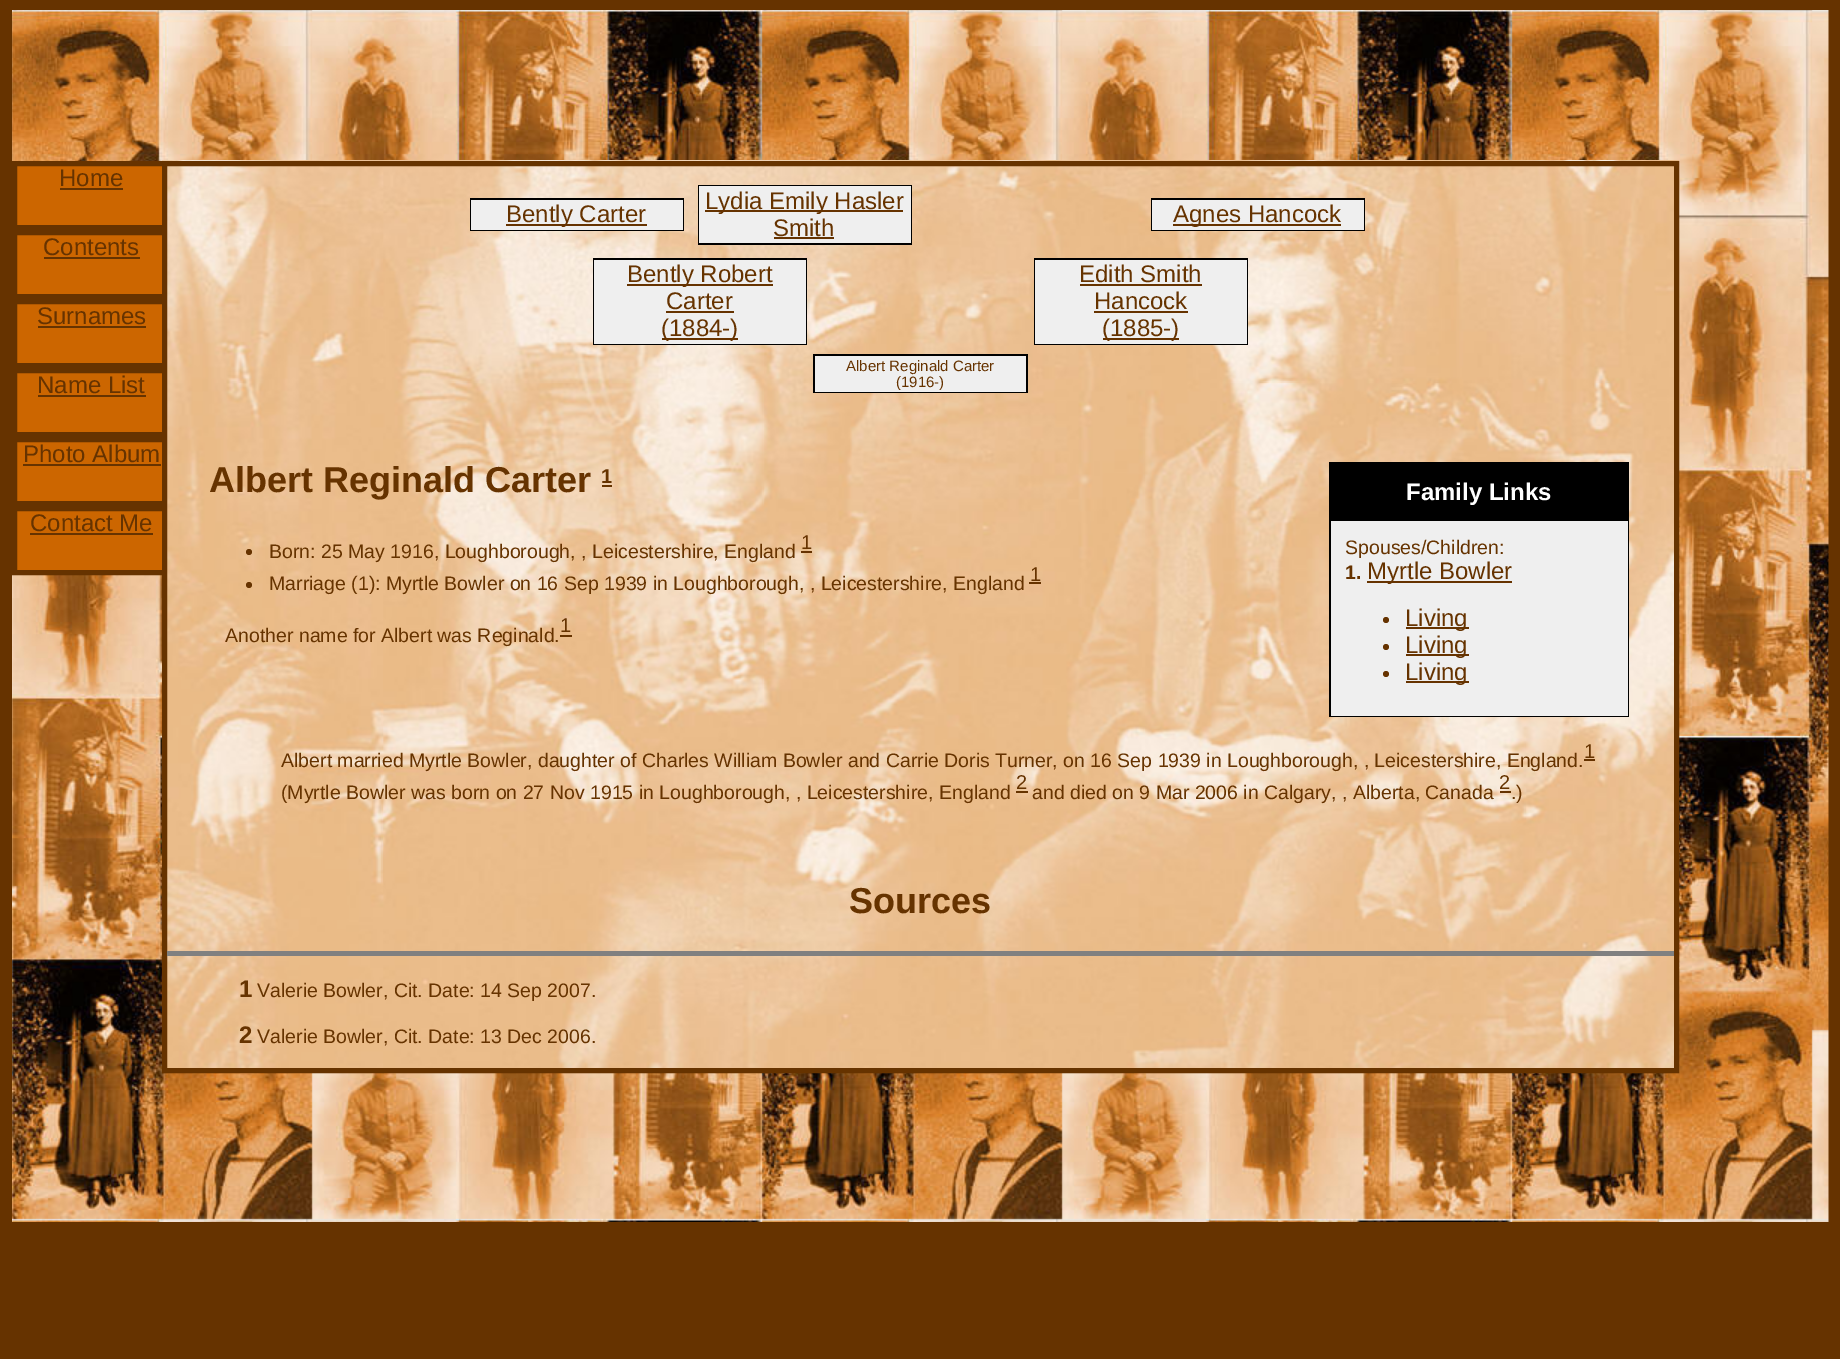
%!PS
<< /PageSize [1840 1359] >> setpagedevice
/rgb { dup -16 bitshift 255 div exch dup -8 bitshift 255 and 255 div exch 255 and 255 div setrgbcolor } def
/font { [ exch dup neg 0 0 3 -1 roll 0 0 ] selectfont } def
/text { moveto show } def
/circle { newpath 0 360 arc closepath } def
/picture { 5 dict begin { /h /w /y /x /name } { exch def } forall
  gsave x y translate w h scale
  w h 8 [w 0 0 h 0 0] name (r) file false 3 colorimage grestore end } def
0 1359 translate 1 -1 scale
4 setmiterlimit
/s1 { /LiberationSans-Regular 24 font 16#663300 rgb } def
/s2 { /LiberationSans-Regular 15 font 16#663300 rgb } def
/s3 { /LiberationSans-Bold 36 font 16#663300 rgb } def
/s4 { /LiberationSans-Bold 20 font 16#663300 rgb } def
/s5 { /LiberationSans-Bold 24 font 16#FFFFFF rgb } def
/s6 { /LiberationSans-Regular 19.5 font 16#663300 rgb } def
/s7 { /LiberationSans-Bold 19.5 font 16#663300 rgb } def
/s8 { /LiberationSans-Regular 20 font 16#663300 rgb } def
/s9 { /LiberationSans-Bold 24 font 16#663300 rgb } def
16#663300 rgb
0 0 1840 1359 rectfill
(pic1.raw) 12 10 1817 1212 picture
16#CC6600 rgb
17 166 145 59 rectfill
16#663300 rgb
5 setlinewidth
14.5 163.5 154 64 rectstroke
s1
(Home) 59 186 text
60 188 63 2 rectfill
16#CC6600 rgb
17 235 145 59 rectfill
16#663300 rgb
14.5 232.5 154 64 rectstroke
(Contents) 43 255 text
44 257 96 2 rectfill
16#CC6600 rgb
17 304 145 59 rectfill
16#663300 rgb
14.5 301.5 154 64 rectstroke
(Surnames) 37 324 text
38 326 108 2 rectfill
16#CC6600 rgb
17 373 145 59 rectfill
16#663300 rgb
14.5 370.5 154 64 rectstroke
(Name List) 37 393 text
38 395 108 2 rectfill
16#CC6600 rgb
17 442 145 59 rectfill
16#663300 rgb
14.5 439.5 154 64 rectstroke
(Photo Album) 23 462 text
23 464 138 2 rectfill
16#CC6600 rgb
17 511 145 59 rectfill
16#663300 rgb
14.5 508.5 154 64 rectstroke
(Contact Me) 30 531 text
30 533 123 2 rectfill
(pic2.raw) 162 160 1517 908 picture
164.5 163.5 1512 907 rectstroke
16#000000 rgb
470 198 214 33 rectfill
16#EFEFEF rgb
471 200 212 30 rectfill
16#663300 rgb
506 224 141 2 rectfill
(Bently Carter) 506 222 text
16#000000 rgb
698 185 214 60 rectfill
16#EFEFEF rgb
699 186 212 57 rectfill
16#663300 rgb
705 210 198 2 rectfill
(Lydia Emily Hasler) 705 209 text
(Smith) 773 236 text
774 237 60 2 rectfill
16#000000 rgb
1151 198 214 33 rectfill
16#EFEFEF rgb
1152 200 212 30 rectfill
16#663300 rgb
1173 224 168 2 rectfill
(Agnes Hancock) 1173 222 text
16#000000 rgb
593 258 214 87 rectfill
16#EFEFEF rgb
594 260 212 84 rectfill
16#663300 rgb
627 284 146 2 rectfill
(Bently Robert) 627 282 text
(Carter) 666 309 text
666 311 68 2 rectfill
662 338 76 2 rectfill
(\(1884-\)) 661 336 text
16#000000 rgb
1034 258 214 87 rectfill
16#EFEFEF rgb
1035 260 212 84 rectfill
s1
(Edith Smith) 1079 282 text
1080 284 122 2 rectfill
(Hancock) 1094 309 text
1094 311 94 2 rectfill
1103 338 76 2 rectfill
(\(1885-\)) 1102 336 text
16#000000 rgb
813 354 215 39 rectfill
16#EFEFEF rgb
815 356 211 36 rectfill
s2
(Albert Reginald Carter) 846 371 text
(\(1916-\)) 896 387 text
s3
(Albert Reginald Carter) 209 492 text
s4
(1) 601 483 text
602 485 10 2 rectfill
16#000000 rgb
1329 462 300 255 rectfill
s5
(Family Links) 1406 500 text
16#EFEFEF rgb
1331 521 297 195 rectfill
s6
(Spouses/Children:) 1345 554 text
s7
(1.) 1345 579 text
1367 581 145 2 rectfill
s1
(Myrtle Bowler) 1367 579 text
1386 620 3 circle fill
1406 627 63 2 rectfill
(Living) 1405 626 text
1386 647 3 circle fill
1406 654 63 2 rectfill
(Living) 1405 653 text
1386 674 3 circle fill
1406 681 63 2 rectfill
(Living) 1405 680 text
249 552 3 circle fill
s6
(Born: 25 May 1916, Loughborough, , Leicestershire, England) 269 558 text
s8
(1) 801 549 text
801 551 11 2 rectfill
249 585 3 circle fill
s6
(Marriage \(1\): Myrtle Bowler on 16 Sep 1939 in Loughborough, , Leicestershire, England) 269 590 text
s8
(1) 1030 581 text
1029 582 12 2 rectfill
(1) 560 632 text
560 635 12 2 rectfill
s6
(Another name for Albert was Reginald.) 225 642 text
(Albert married Myrtle Bowler, daughter of Charles William Bowler and Carrie Doris Turner, on 16 Sep 1939 in Loughborough, , Leicestershire, England.) 281 767 text
1584 759 11 2 rectfill
s8
(1) 1584 758 text
(2) 1016 789 text
(2) 1499 789 text
s6
(\(Myrtle Bowler was born on 27 Nov 1915 in Loughborough, , Leicestershire, England) 281 799 text
(and died on 9 Mar 2006 in Calgary, , Alberta, Canada) 1032 799 text
1016 791 12 2 rectfill
(.\)) 1511 799 text
1500 791 11 2 rectfill
s3
(Sources) 849 913 text
16#808080 rgb
167 951 1507 5 rectfill
s9
(1) 239 997 text
s6
(Valerie Bowler, Cit. Date: 14 Sep 2007.) 257 997 text
s9
(2) 239 1043 text
s6
(Valerie Bowler, Cit. Date: 13 Dec 2006.) 257 1043 text
showpage
